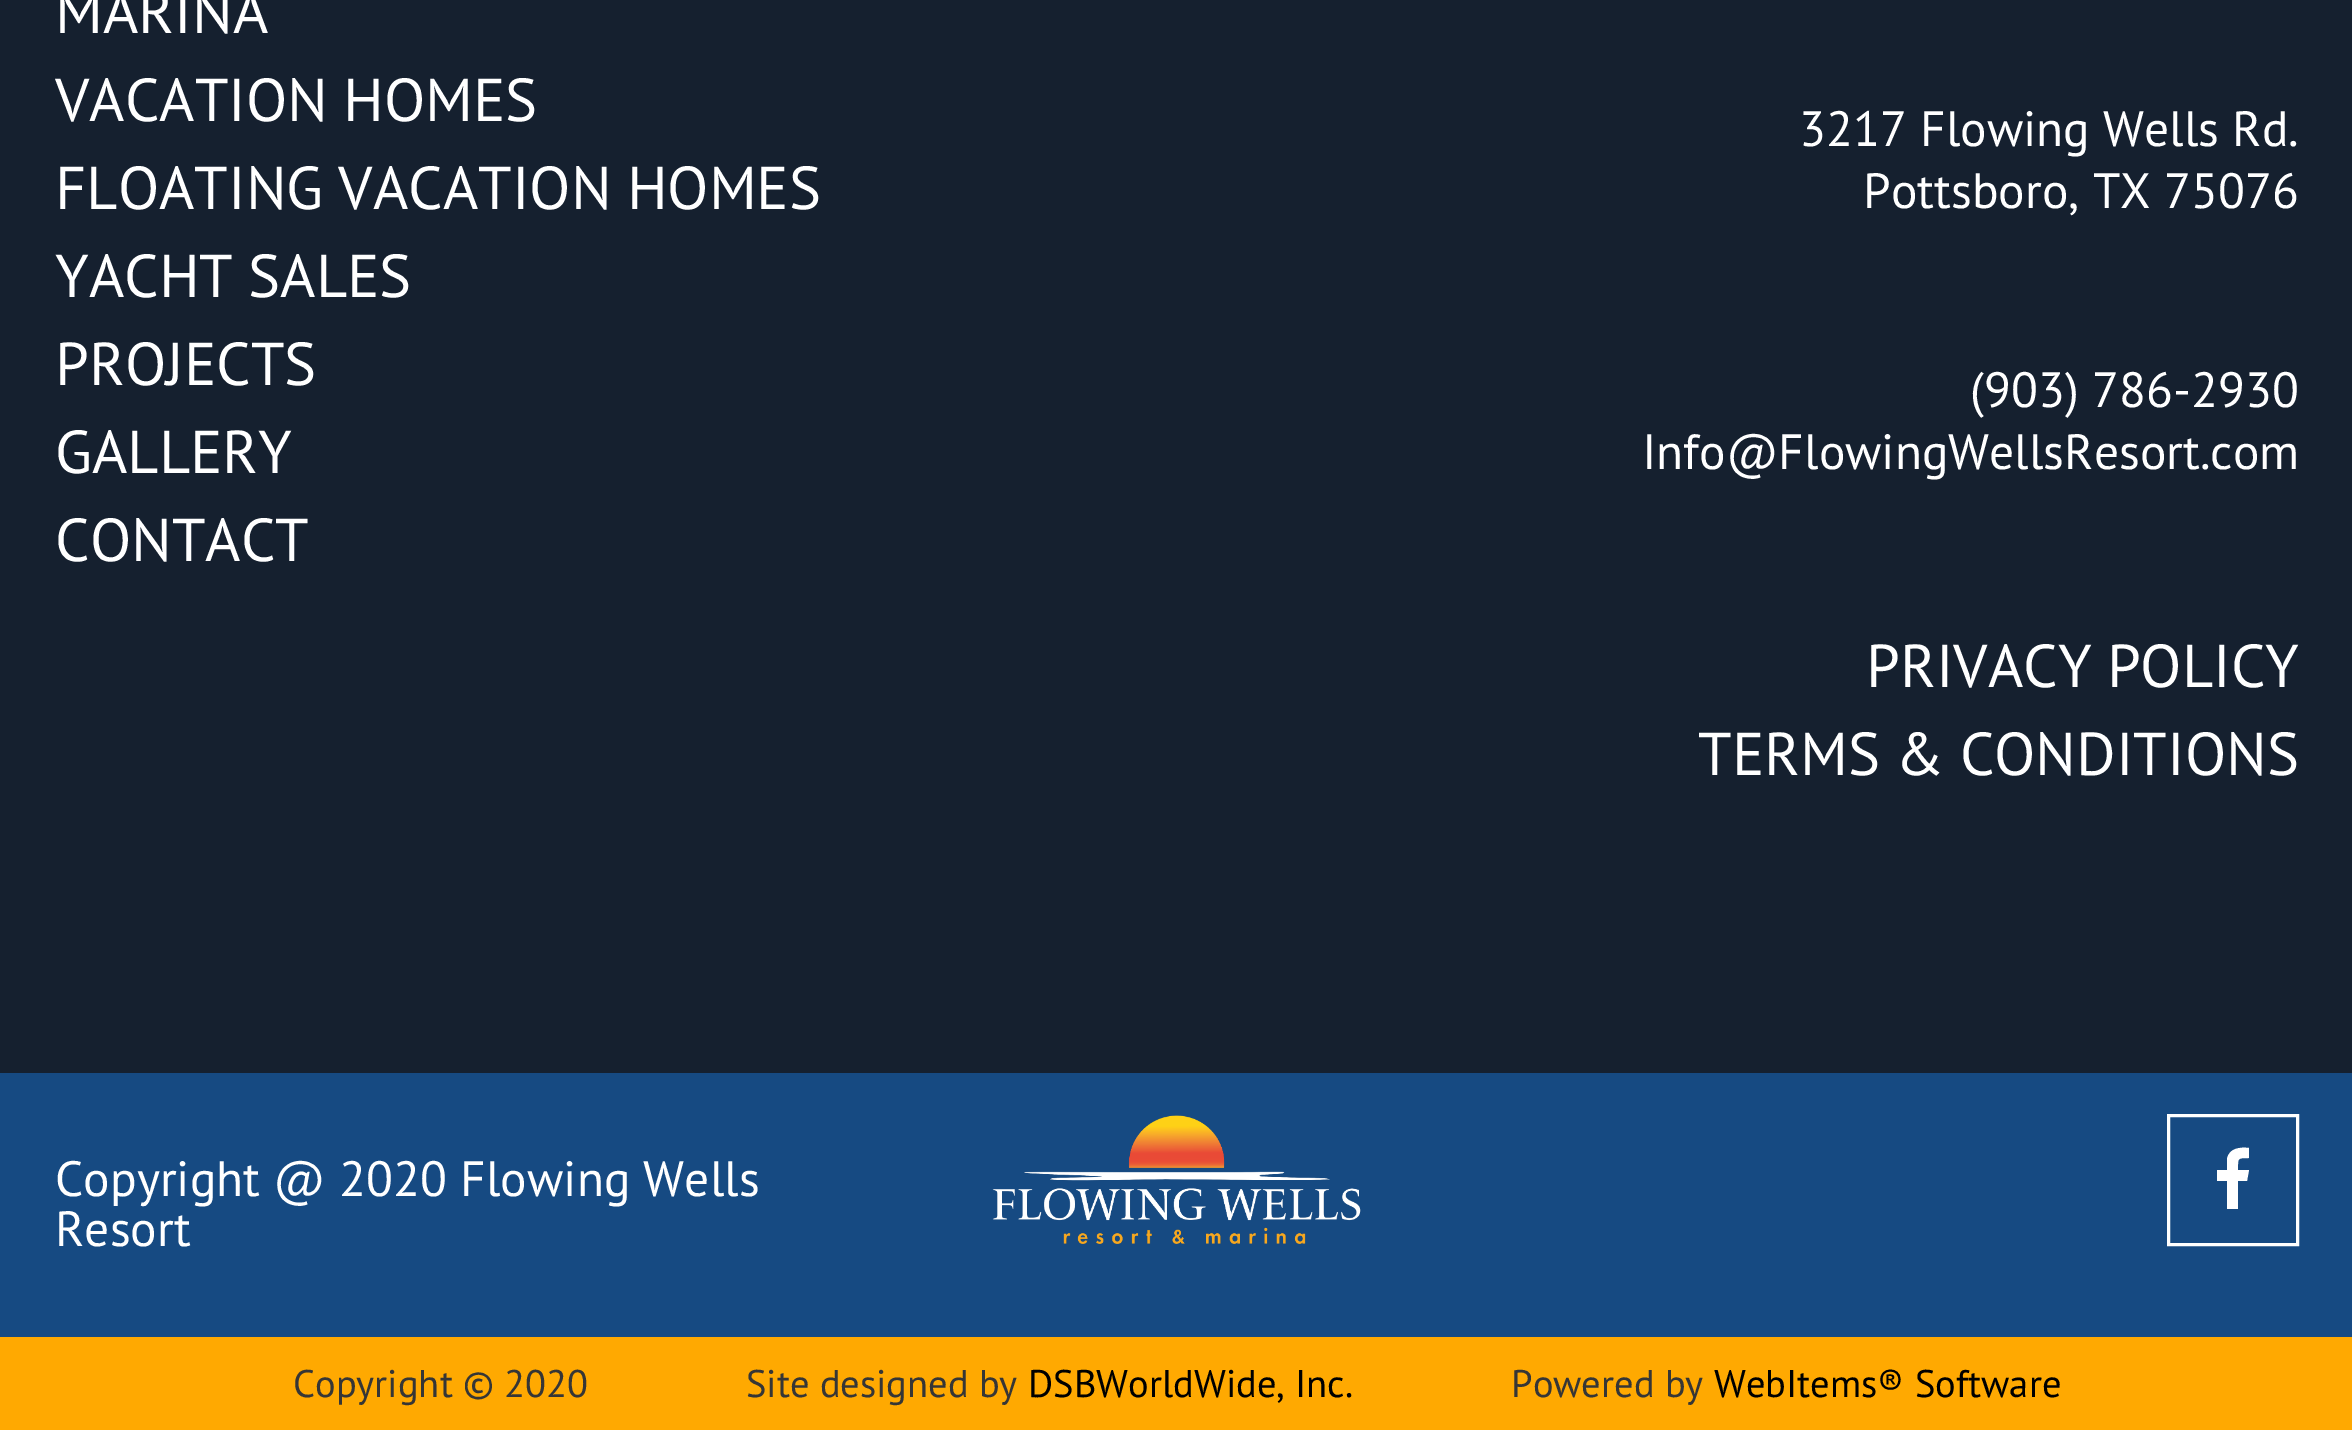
%!PS
<< /PageSize [2352 1430] >> setpagedevice
/rgb { dup -16 bitshift 255 div exch dup -8 bitshift 255 and 255 div exch 255 and 255 div setrgbcolor } def
/font { [ exch dup neg 0 0 3 -1 roll 0 0 ] selectfont } def
/text { moveto show } def
/picture { 5 dict begin { /h /w /y /x /name } { exch def } forall
  gsave x y translate w h scale
  w h 8 [w 0 0 h 0 0] name (r) file false 3 colorimage grestore end } def
0 1430 translate 1 -1 scale
4 setmiterlimit
/s1 { /PTSans-Regular 60.5 font 16#FFFFFF rgb } def
/s2 { /PTSans-Regular 49.5 font 16#FFFFFF rgb } def
/s3 { /PTSans-Regular 38.5 font 16#363636 rgb } def
/s4 { /PTSans-Regular 38.5 font 16#000000 rgb } def
16#15202F rgb
0 0 2352 1430 rectfill
s1
(MARINA) 55 33 text
55 121 moveto -1 0 32 (VACATION HOMES) widthshow
55 209 moveto -1 0 32 (FLOATING VACATION HOMES) widthshow
55 297 moveto -1 0 32 (YACHT SALES) widthshow
(PROJECTS) 55 385 text
(GALLERY) 55 473 text
(CONTACT) 55 561 text
s2
(3217 Flowing Wells Rd.) 1799 146 text
(Pottsboro, TX 75076) 1863 208 text
(\(903\) 786-2930) 1970 407 text
(Info@FlowingWellsResort.com) 1642 469 text
/PTSans-Regular 60.5 font
1866 687 moveto -1 0 32 (PRIVACY POLICY) widthshow
1698 775 moveto -1 0 32 (TERMS & CONDITIONS) widthshow
16#164A82 rgb
0 1073 2352 264 rectfill
s2
(Copyright @ 2020 Flowing Wells) 55 1196 text
(Resort) 55 1246 text
(pic1.raw) 992 1115 369 129 picture
3 setlinewidth
2168.5 1115.5 129 129 rectstroke
2249 1148 moveto 2249 1158 lineto 2237 1158 2238 1158 2238 1170 curveto 2249 1170 lineto 2247 1181 lineto 2238 1181 lineto 2238 1209 lineto 2227 1209 lineto 2227 1181 lineto 2217 1181 lineto 2217 1170 lineto 2227 1170 lineto 2227 1159 lineto 2229 1148 2240 1147 2249 1148 curveto closepath fill
16#FFA901 rgb
0 1337 2352 93 rectfill
s3
(Copyright © 2020) 293 1397 text
(Site designed by) 746 1397 text
s4
(DSBWorldWide, Inc.) 1028 1397 text
s3
(Powered by) 1511 1397 text
s4
(WebItems® Software) 1714 1397 text
showpage
